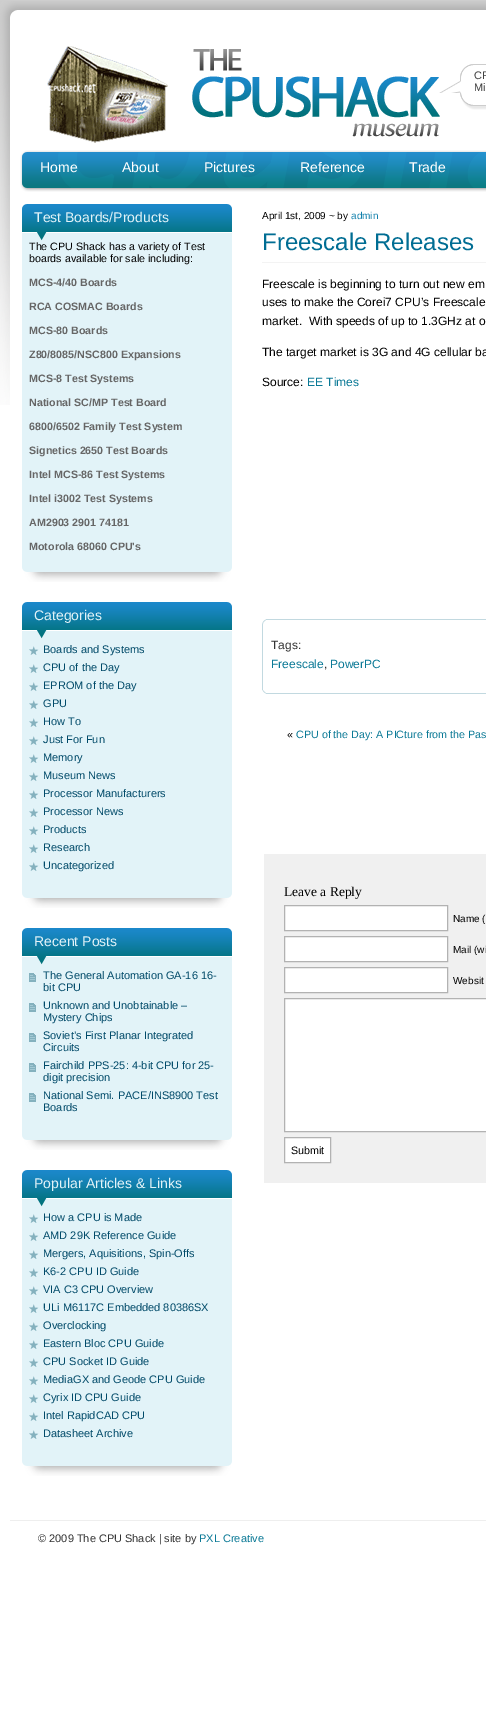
%!PS
<< /PageSize [486 1725] >> setpagedevice
/rgb { dup -16 bitshift 255 div exch dup -8 bitshift 255 and 255 div exch 255 and 255 div setrgbcolor } def
/font { [ exch dup neg 0 0 3 -1 roll 0 0 ] selectfont } def
/text { moveto show } def
/picture { 5 dict begin { /h /w /y /x /name } { exch def } forall
  gsave x y translate w h scale
  w h 8 [w 0 0 h 0 0] name (r) file false 3 colorimage grestore end } def
0 1725 translate 1 -1 scale
4 setmiterlimit
/s1 { /LiberationSans-Regular 11 font 16#404040 rgb } def
/s2 { /LiberationSans-Regular 14 font 16#FFFFFF rgb } def
/s3 { /LiberationSans-Regular 14 font 16#E2F3F8 rgb } def
/s4 { /LiberationSans-Regular 10.7 font 16#000000 rgb } def
/s5 { /LiberationSans-Bold 10.7 font 16#666666 rgb } def
/s6 { /LiberationSans-Regular 11 font 16#004A69 rgb } def
/s7 { /LiberationSans-Regular 10 font 16#000000 rgb } def
/s8 { /LiberationSans-Regular 10 font 16#1180AC rgb } def
/s9 { /LiberationSans-Regular 24 font 16#006D93 rgb } def
/s10 { /LiberationSans-Regular 12 font 16#000000 rgb } def
/s11 { /LiberationSans-Regular 12 font 16#0A7996 rgb } def
/s12 { /LiberationSans-Regular 12 font 16#333333 rgb } def
/s13 { /LiberationSans-Regular 10.7 font 16#0A7996 rgb } def
/s14 { /LiberationSerif-Regular 13.5 font 16#000000 rgb } def
/s15 { /LiberationSans-Regular 11 font 16#333333 rgb } def
/s16 { /LiberationSans-Regular 11 font 16#0A7996 rgb } def
16#FFFFFF rgb
0 0 486 1725 rectfill
(pic1.raw) 0 0 486 1 picture
(pic2.raw) 0 1 486 404 picture
(pic3.raw) 47 46 121 97 picture
(pic4.raw) 192 49 248 88 picture
(pic5.raw) 460 93 26 17 picture
(pic6.raw) 439 64 47 29 picture
s1
(CP) 474 79 text
(Mi) 474 91 text
(pic7.raw) 20 150 466 42 picture
s2
(Home) 40 172 text
(About) 122 172 text
(Pictures) 204 172 text
(Reference) 300 172 text
(Trade) 409 172 text
(pic8.raw) 22 241 210 341 picture
(pic9.raw) 22 204 210 37 picture
s3
(Test Boards/Products) 34 222 text
s4
(The CPU Shack has a variety of Test) 29 250 text
(boards available for sale including:) 29 262 text
s5
(MCS-4/40 Boards) 29 286 text
(RCA COSMAC Boards) 29 310 text
(MCS-80 Boards) 29 334 text
(Z80/8085/NSC800 Expansions) 29 358 text
(MCS-8 Test Systems) 29 382 text
(National SC/MP Test Board) 29 406 text
(6800/6502 Family Test System) 29 430 text
(Signetics 2650 Test Boards) 29 454 text
(Intel MCS-86 Test Systems) 29 478 text
(Intel i3002 Test Systems) 29 502 text
(AM2903 2901 74181) 29 526 text
(Motorola 68060 CPU's) 29 550 text
(pic10.raw) 22 639 210 269 picture
(pic9.raw) 22 602 210 37 picture
s3
(Categories) 34 620 text
(pic11.raw) 29 646 10 9 picture
s6
(Boards and Systems) 43 653 text
(pic11.raw) 29 664 10 9 picture
(CPU of the Day) 43 671 text
(pic11.raw) 29 682 10 9 picture
(EPROM of the Day) 43 689 text
(pic11.raw) 29 700 10 9 picture
(GPU) 43 707 text
(pic11.raw) 29 718 10 9 picture
(How To) 43 725 text
(pic11.raw) 29 736 10 9 picture
(Just For Fun) 43 743 text
(pic11.raw) 29 754 10 9 picture
(Memory) 43 761 text
(pic11.raw) 29 772 10 9 picture
(Museum News) 43 779 text
(pic11.raw) 29 790 10 9 picture
(Processor Manufacturers) 43 797 text
(pic11.raw) 29 808 10 9 picture
(Processor News) 43 815 text
(pic11.raw) 29 826 10 9 picture
(Products) 43 833 text
(pic11.raw) 29 844 10 9 picture
(Research) 43 851 text
(pic11.raw) 29 862 10 9 picture
(Uncategorized) 43 869 text
(pic12.raw) 22 965 210 185 picture
(pic9.raw) 22 928 210 37 picture
s3
(Recent Posts) 34 946 text
(pic13.raw) 29 973 7 9 picture
s6
(The General Automation GA-16 16-) 43 979 text
(bit CPU) 43 991 text
(pic13.raw) 29 1003 7 9 picture
(Unknown and Unobtainable –) 43 1009 text
(Mystery Chips) 43 1021 text
(pic13.raw) 29 1033 7 9 picture
(Soviet’s First Planar Integrated) 43 1039 text
(Circuits) 43 1051 text
(pic13.raw) 29 1063 7 9 picture
(Fairchild PPS-25: 4-bit CPU for 25-) 43 1069 text
(digit precision) 43 1081 text
(pic13.raw) 29 1093 7 9 picture
(National Semi. PACE/INS8900 Test) 43 1099 text
(Boards) 43 1111 text
(pic10.raw) 22 1207 210 269 picture
(pic9.raw) 22 1170 210 37 picture
s3
(Popular Articles & Links) 34 1188 text
(pic11.raw) 29 1214 10 9 picture
s6
(How a CPU is Made) 43 1221 text
(pic11.raw) 29 1232 10 9 picture
(AMD 29K Reference Guide) 43 1239 text
(pic11.raw) 29 1250 10 9 picture
(Mergers, Aquisitions, Spin-Offs) 43 1257 text
(pic11.raw) 29 1268 10 9 picture
(K6-2 CPU ID Guide) 43 1275 text
(pic11.raw) 29 1286 10 9 picture
(VIA C3 CPU Overview) 43 1293 text
(pic11.raw) 29 1304 10 9 picture
(ULi M6117C Embedded 80386SX) 43 1311 text
(pic11.raw) 29 1322 10 9 picture
(Overclocking) 43 1329 text
(pic11.raw) 29 1340 10 9 picture
(Eastern Bloc CPU Guide) 43 1347 text
(pic11.raw) 29 1358 10 9 picture
(CPU Socket ID Guide) 43 1365 text
(pic11.raw) 29 1376 10 9 picture
(MediaGX and Geode CPU Guide) 43 1383 text
(pic11.raw) 29 1394 10 9 picture
(Cyrix ID CPU Guide) 43 1401 text
(pic11.raw) 29 1412 10 9 picture
(Intel RapidCAD CPU) 43 1419 text
(pic11.raw) 29 1430 10 9 picture
(Datasheet Archive) 43 1437 text
s7
(April 1st, 2009 ~ by) 262 219 text
s8
(admin) 351 219 text
16#F3F3F3 rgb
262 262 224 1 rectfill
s9
(Freescale Releases) 262 250 text
s10
(Freescale is beginning to turn out new em) 262 288 text
(uses to make the Corei7 CPU’s Freescale) 262 306 text
(market.  With speeds of up to 1.3GHz at o) 262 325 text
(The target market is 3G and 4G cellular ba) 262 356 text
(Source:) 262 386 text
s11
(EE Times) 307 386 text
16#C2D9E0 rgb
266 619 220 1 rectfill
(pic14.raw) 262 619 4 71 picture
s12
(Tags:) 271 649 text
s11
(Freescale) 271 668 text
s12
(,) 324 668 text
s11
(PowerPC) 330 668 text
16#C2D9E0 rgb
266 693 220 1 rectfill
(pic15.raw) 262 690 4 4 picture
s4
(«) 287 738 text
s13
(CPU of the Day: A PICture from the Pas) 296 738 text
16#F0F0F0 rgb
264 854 222 329 rectfill
s14
(Leave a Reply) 284 896 text
16#FFFFFF rgb
284.5 905.5 moveto 447.5 905.5 lineto 447.5 930.5 lineto 284.5 930.5 lineto closepath gsave fill grestore
16#B2B2B2 rgb
stroke
s7
(Name \() 453 922 text
16#FFFFFF rgb
284.5 936.5 moveto 447.5 936.5 lineto 447.5 961.5 lineto 284.5 961.5 lineto closepath gsave fill grestore
16#B2B2B2 rgb
stroke
s7
(Mail \(wi) 453 953 text
16#FFFFFF rgb
284.5 967.5 moveto 447.5 967.5 lineto 447.5 992.5 lineto 284.5 992.5 lineto closepath gsave fill grestore
16#B2B2B2 rgb
stroke
s7
(Websit) 453 984 text
16#FFFFFF rgb
284.5 998.5 moveto 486.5 998.5 lineto 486.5 1131.5 lineto 284.5 1131.5 lineto closepath gsave fill grestore
16#B2B2B2 rgb
stroke
16#FFFFFF rgb
284.5 1137.5 moveto 330.5 1137.5 lineto 330.5 1162.5 lineto 284.5 1162.5 lineto closepath gsave fill grestore
16#B2B2B2 rgb
stroke
s4
(Submit) 291 1154 text
16#EEEEEE rgb
10 1520 476 1 rectfill
s15
(© 2009 The CPU Shack | site by) 38 1542 text
s16
(PXL Creative) 199 1542 text
showpage
